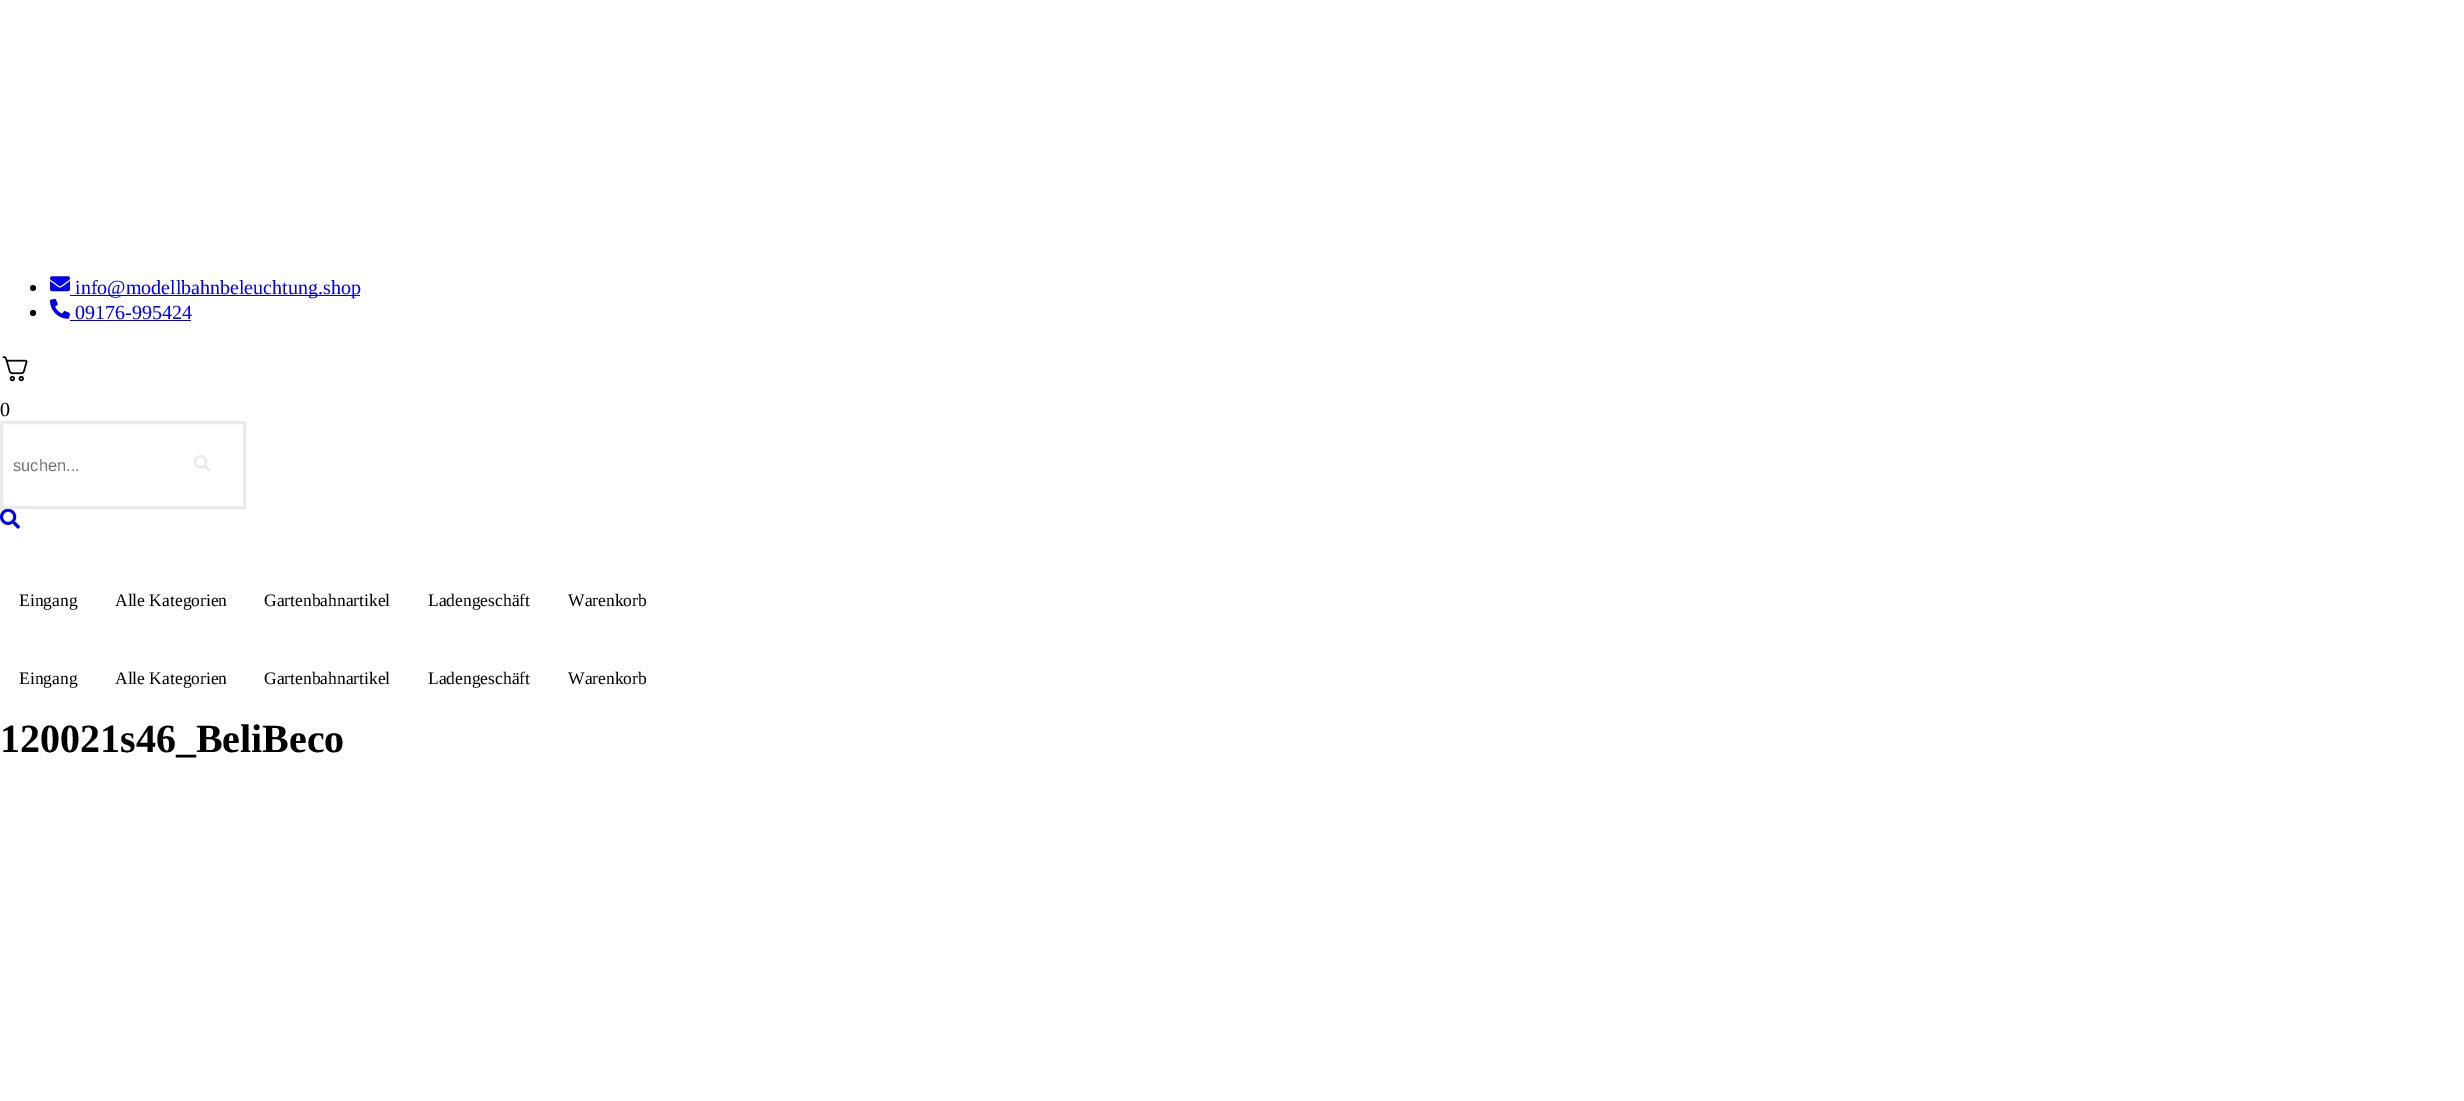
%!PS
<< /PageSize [2464 1101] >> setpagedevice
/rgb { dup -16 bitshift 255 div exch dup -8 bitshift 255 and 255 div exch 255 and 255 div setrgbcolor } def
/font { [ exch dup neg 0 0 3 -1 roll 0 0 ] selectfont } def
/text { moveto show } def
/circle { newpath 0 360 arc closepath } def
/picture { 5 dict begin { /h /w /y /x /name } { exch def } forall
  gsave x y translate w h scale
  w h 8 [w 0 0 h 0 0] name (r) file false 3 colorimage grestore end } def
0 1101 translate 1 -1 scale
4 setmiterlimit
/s1 { /LiberationSerif-Regular 20 font 16#0000EE rgb } def
/s2 { /LiberationSerif-Regular 20 font 16#000000 rgb } def
/s3 { /LiberationSans-Regular 16.5 font 16#757575 rgb } def
/s4 { /LiberationSerif-Regular 17.5 font 16#000000 rgb } def
/s5 { /LiberationSerif-Bold 40 font 16#000000 rgb } def
16#FFFFFF rgb
0 0 2464 1101 rectfill
16#000000 rgb
33 288 3 circle fill
(pic1.raw) 50 276 20 16 picture
16#0000EE rgb
70 295 290 1 rectfill
s1
(info@modellbahnbeleuchtung.shop) 75 294 text
16#000000 rgb
33 313 3 circle fill
(pic2.raw) 50 299 20 20 picture
s1
(09176-995424) 75 319 text
70 320 121 1 rectfill
(pic3.raw) 2 356 26 26 picture
s2
(0) 0 416 text
16#EAEAEB rgb
3 setlinewidth
1.5 422.5 243 85 rectstroke
s3
(suchen...) 13 471 text
(pic4.raw) 194 455 17 16 picture
(pic5.raw) 0 509 20 20 picture
s4
(Eingang) 19 606 text
(Alle Kategorien) 115 606 text
(Gartenbahnartikel) 264 606 text
(Ladengeschäft) 428 606 text
(Warenkorb) 568 606 text
(Eingang) 19 684 text
(Alle Kategorien) 115 684 text
(Gartenbahnartikel) 264 684 text
(Ladengeschäft) 428 684 text
(Warenkorb) 568 684 text
s5
(120021s46_BeliBeco) 0 752 text
showpage
